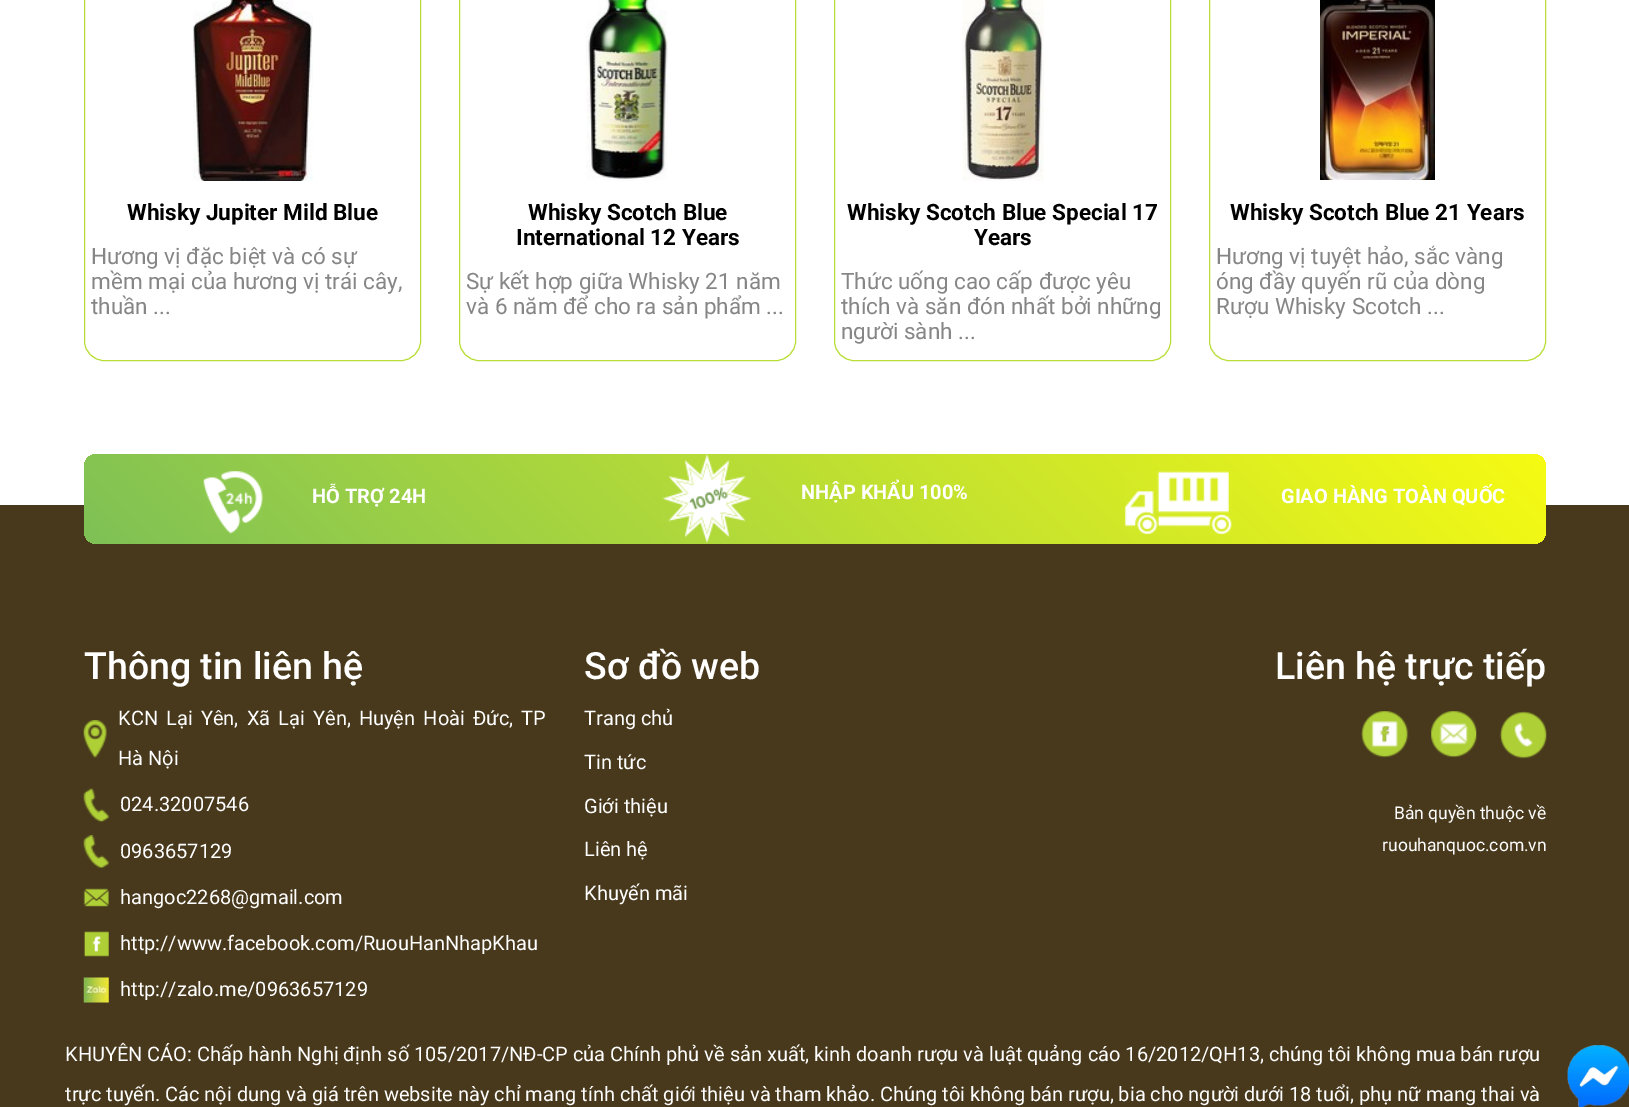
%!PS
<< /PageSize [1629 1107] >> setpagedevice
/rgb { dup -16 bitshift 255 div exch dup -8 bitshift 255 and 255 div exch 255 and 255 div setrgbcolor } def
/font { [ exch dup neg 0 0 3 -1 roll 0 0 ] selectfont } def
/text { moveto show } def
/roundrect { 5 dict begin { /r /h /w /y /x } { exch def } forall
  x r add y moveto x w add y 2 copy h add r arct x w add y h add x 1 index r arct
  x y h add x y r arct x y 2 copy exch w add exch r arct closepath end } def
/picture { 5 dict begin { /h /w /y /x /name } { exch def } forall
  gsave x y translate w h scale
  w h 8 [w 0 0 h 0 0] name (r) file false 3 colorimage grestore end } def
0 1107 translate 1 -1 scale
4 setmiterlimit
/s1 { /Roboto-Bold 22.5 font 16#000000 rgb } def
/s2 { /Roboto-Regular 22.5 font 16#868686 rgb } def
/s3 { /Roboto-Bold 20 font 16#FFFFFF rgb } def
/s4 { /Roboto-Medium 37.5 font 16#FFFFFF rgb } def
/s5 { /Roboto-Regular 20 font 16#FFFFFF rgb } def
/s6 { /Roboto-Regular 17.5 font 16#FFFFFF rgb } def
16#FFFFFF rgb
0 0 1629 1107 rectfill
16#BADE38 rgb
84.5 -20.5 336 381 19.5 roundrect stroke
(pic1.raw) 193 0 120 181 picture
s1
(Whisky Jupiter Mild Blue) 127 220 text
s2
(Hương vị đặc biệt và có sự) 91 264 text
(mềm mại của hương vị trái cây,) 91 289 text
(thuần ...) 91 314 text
16#BADE38 rgb
459.5 -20.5 336 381 19.5 roundrect stroke
(pic2.raw) 586 0 82 181 picture
s1
(Whisky Scotch Blue) 528 220 text
(International 12 Years) 516 245 text
s2
(Sự kết hợp giữa Whisky 21 năm) 466 289 text
(và 6 năm để cho ra sản phẩm ...) 466 314 text
16#BADE38 rgb
834.5 -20.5 336 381 19.5 roundrect stroke
(pic3.raw) 962 0 82 181 picture
s1
(Whisky Scotch Blue Special 17) 847 220 text
(Years) 974 245 text
s2
(Thức uống cao cấp được yêu) 841 289 text
(thích và săn đón nhất bởi những) 841 314 text
(người sành ...) 841 339 text
16#BADE38 rgb
1209.5 -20.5 336 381 19.5 roundrect stroke
(pic4.raw) 1320 0 115 180 picture
s1
(Whisky Scotch Blue 21 Years) 1230 220 text
s2
(Hương vị tuyệt hảo, sắc vàng) 1216 264 text
(óng đầy quyến rũ của dòng) 1216 289 text
(Rượu Whisky Scotch ...) 1216 314 text
16#48391C rgb
0 505 1629 602 rectfill
gsave 84 454 1462 90 13 roundrect clip newpath
<< /ShadingType 2 /ColorSpace /DeviceRGB /Coords [427 887 1203 111] /Extend [true true] /Function << /FunctionType 2 /Domain [0 1] /C0 [0.498 0.757 0.337] /C1 [0.969 0.984 0.071] /N 1 >> >> shfill grestore
(pic5.raw) 203 471 60 63 picture
s3
(HỖ TRỢ 24H) 312 503 text
(pic6.raw) 662 454 90 89 picture
(NHẬP KHẨU 100%) 801 499 text
(pic7.raw) 1124 471 108 64 picture
(GIAO HÀNG TOÀN QUỐC) 1281 503 text
s4
(Thông tin liên hệ) 84 679 text
(pic8.raw) 83 720 24 38 picture
/Roboto-Regular 20 font
118 725 moveto 3.25 0 32 (KCN Lại Yên, Xã Lại Yên, Huyện Hoài Đức, TP) widthshow
(Hà Nội) 118 765 text
(pic9.raw) 83 788 26 34 picture
(024.32007546) 120 811 text
(pic10.raw) 83 835 26 33 picture
(0963657129) 120 858 text
(pic11.raw) 83 888 26 19 picture
(hangoc2268@gmail.com) 120 904 text
(pic12.raw) 83 931 26 26 picture
(http://www.facebook.com/RuouHanNhapKhau) 120 950 text
(pic13.raw) 83 977 26 26 picture
(http://zalo.me/0963657129) 120 996 text
s4
(Sơ đồ web) 584 679 text
s5
(Trang chủ) 584 725 text
(Tin tức) 584 769 text
(Giới thiệu) 584 813 text
(Liên hệ) 584 856 text
(Khuyến mãi) 584 900 text
s4
(Liên hệ trực tiếp) 1275 679 text
(pic14.raw) 1361 711 48 47 picture
(pic15.raw) 1431 711 46 47 picture
(pic16.raw) 1499 711 48 48 picture
s6
(Bản quyền thuộc về) 1394 819 text
(ruouhanquoc.com.vn) 1382 851 text
s5
(KHUYÊN CÁO: Chấp hành Nghị định số 105/2017/NĐ-CP của Chính phủ về sản xuất, kinh doanh rượu và luật quảng cáo 16/2012/QH13, chúng tôi không mua bán rượu) 65 1061 text
(trực tuyến. Các nội dung và giá trên website này chỉ mang tính chất giới thiệu và tham khảo. Chúng tôi không bán rượu, bia cho người dưới 18 tuổi, phụ nữ mang thai và) 65 1101 text
(pic17.raw) 1567 1045 62 62 picture
showpage
